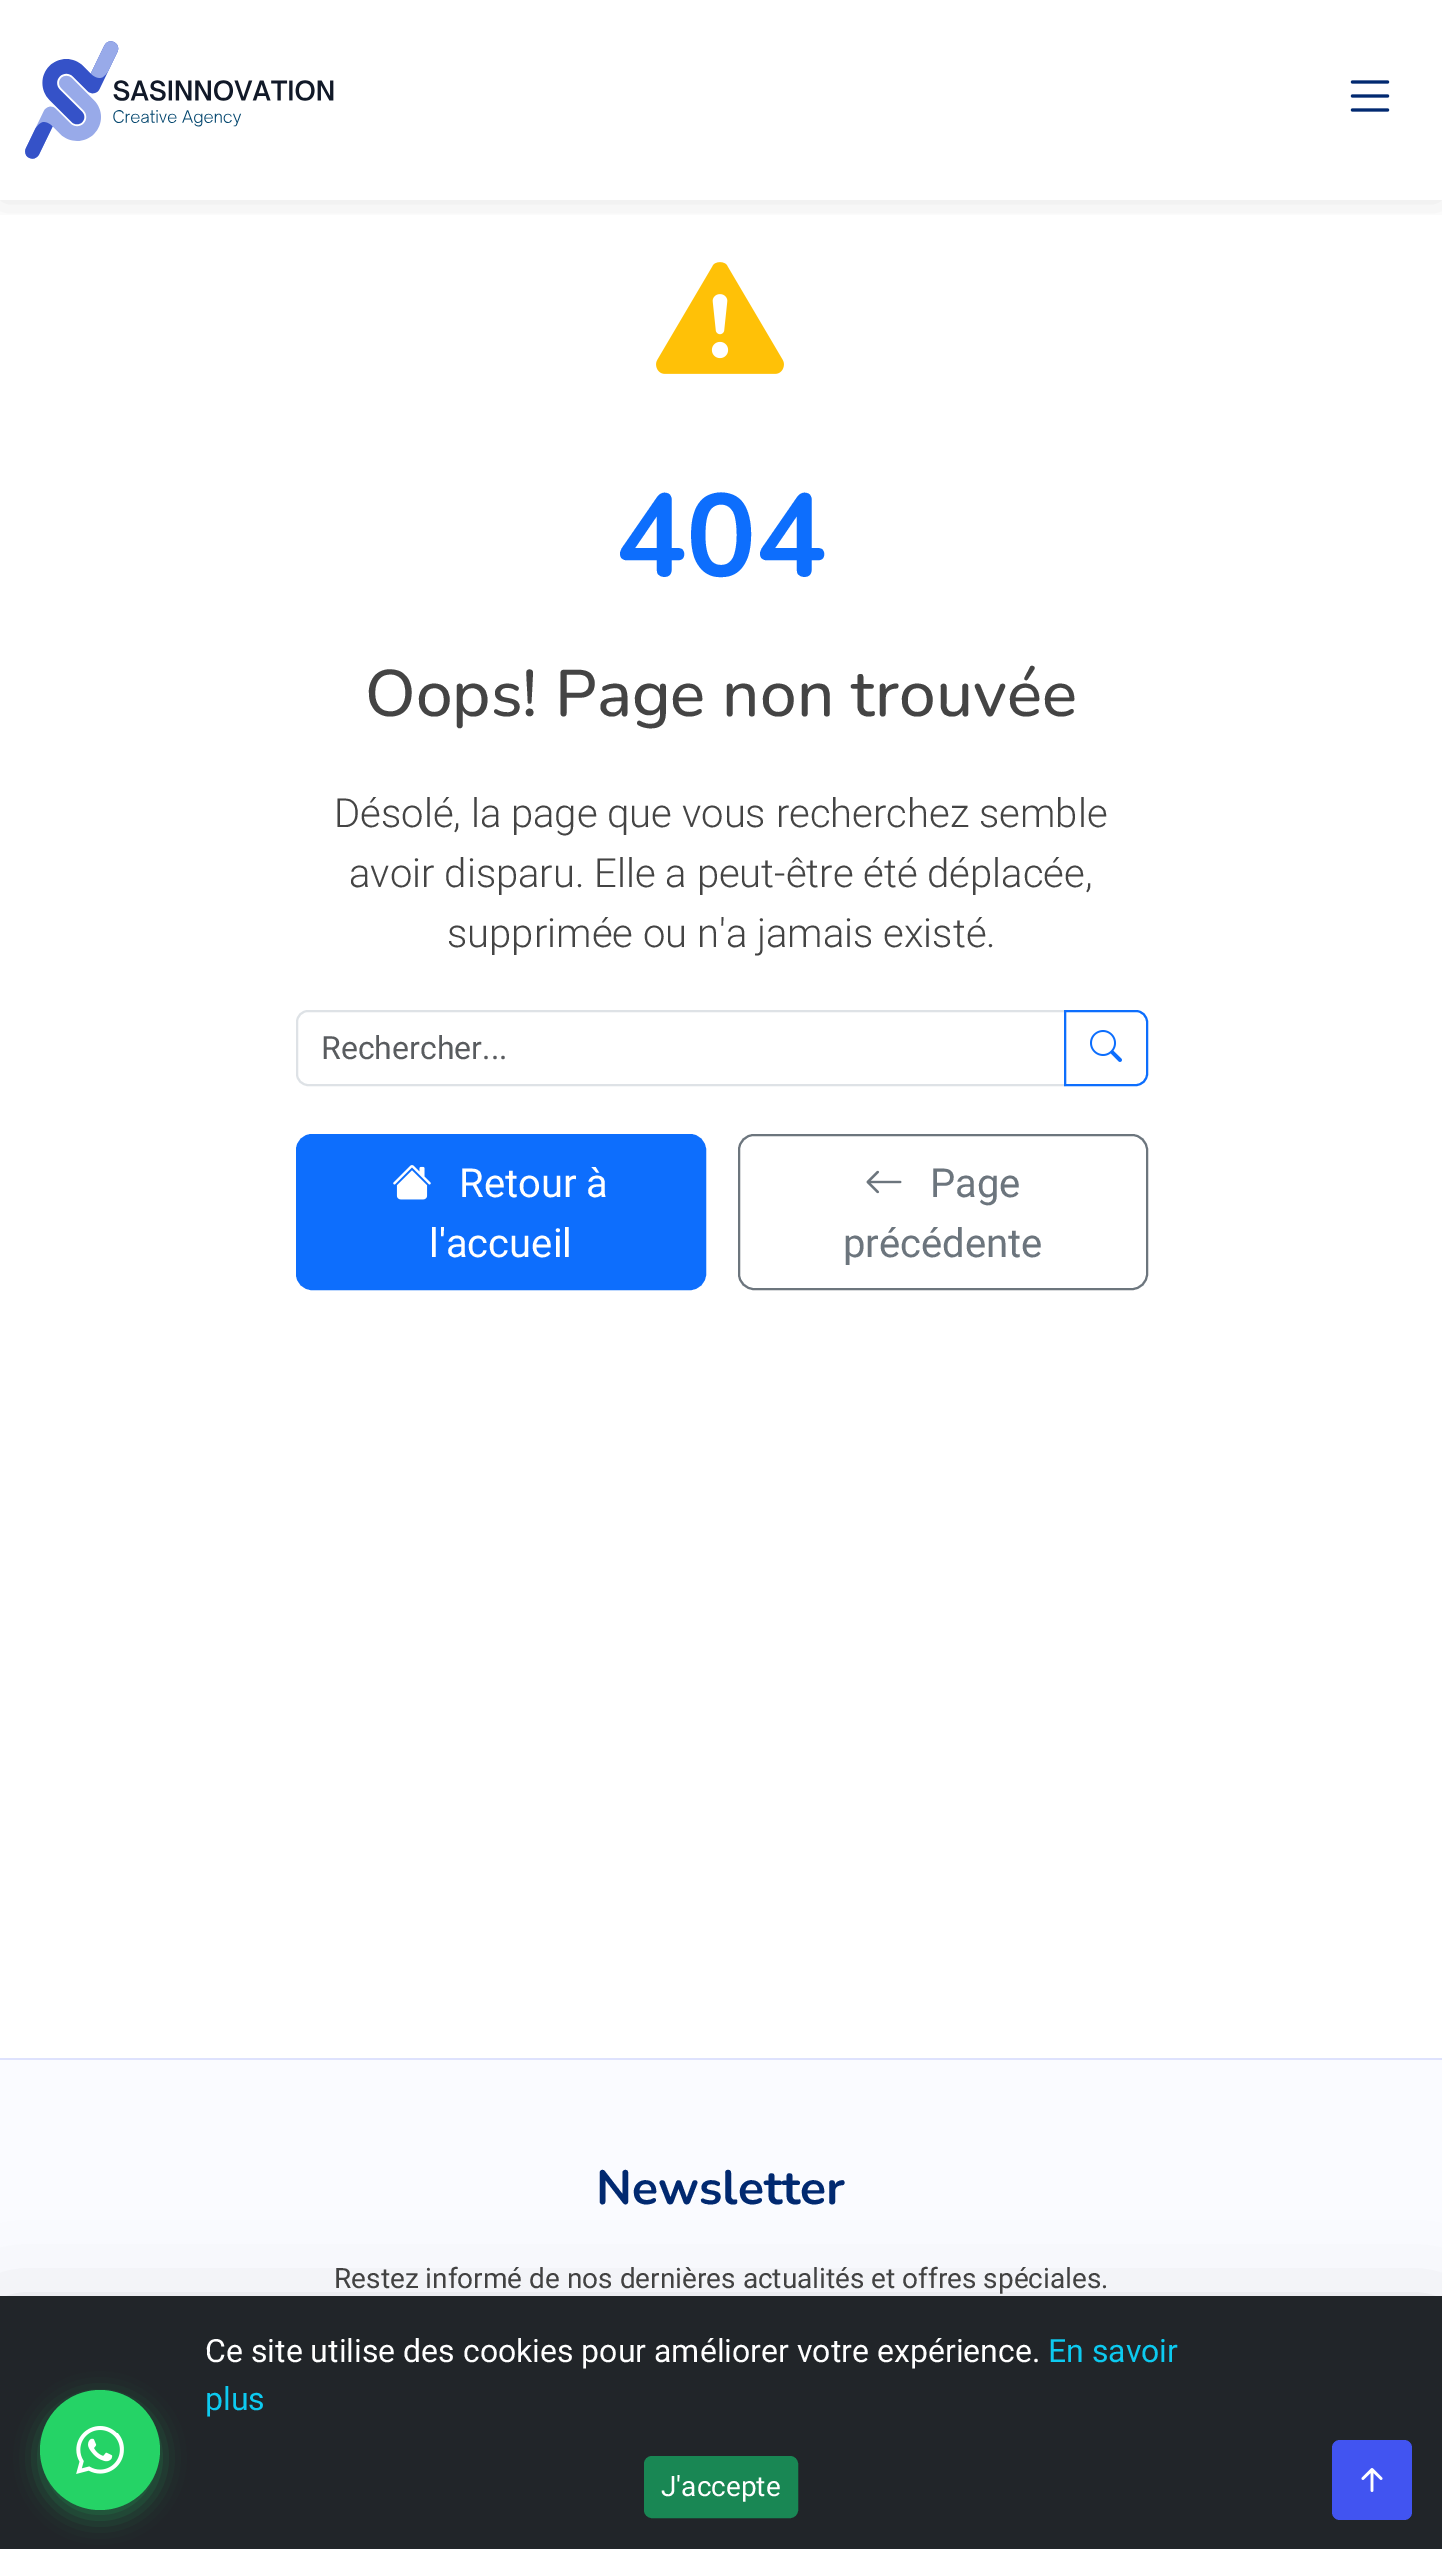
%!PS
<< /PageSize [1442 2549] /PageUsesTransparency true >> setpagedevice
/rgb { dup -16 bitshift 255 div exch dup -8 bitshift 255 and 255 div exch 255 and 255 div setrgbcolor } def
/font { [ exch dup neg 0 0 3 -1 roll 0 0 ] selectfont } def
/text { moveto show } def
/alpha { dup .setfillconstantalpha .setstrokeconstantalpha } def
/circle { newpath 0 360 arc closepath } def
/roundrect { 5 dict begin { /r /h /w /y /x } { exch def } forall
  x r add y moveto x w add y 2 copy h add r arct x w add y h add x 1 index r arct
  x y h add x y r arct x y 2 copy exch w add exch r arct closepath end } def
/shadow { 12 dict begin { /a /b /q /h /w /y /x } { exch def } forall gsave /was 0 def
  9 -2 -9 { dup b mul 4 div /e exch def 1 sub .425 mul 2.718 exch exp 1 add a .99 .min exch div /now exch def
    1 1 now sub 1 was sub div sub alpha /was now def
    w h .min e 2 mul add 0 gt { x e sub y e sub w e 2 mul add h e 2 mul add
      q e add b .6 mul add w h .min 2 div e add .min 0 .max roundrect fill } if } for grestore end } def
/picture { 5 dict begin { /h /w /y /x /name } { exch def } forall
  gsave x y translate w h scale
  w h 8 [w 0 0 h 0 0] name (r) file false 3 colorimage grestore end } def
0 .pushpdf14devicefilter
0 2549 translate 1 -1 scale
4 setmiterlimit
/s1 { /Nunito-Bold 117 font 16#0D6EFD rgb } def
/s2 { /Nunito-Medium 65.6 font 16#444444 rgb } def
/s3 { /Roboto-Light 40 font 16#444444 rgb } def
/s4 { /Roboto-Regular 32 font 16#595C5F rgb } def
/s5 { /Roboto-Regular 40 font 16#FFFFFF rgb } def
/s6 { /Roboto-Regular 40 font 16#6C757D rgb } def
/s7 { /Nunito-Bold 48 font 16#012970 rgb } def
/s8 { /Roboto-Regular 28 font 16#444444 rgb } def
/s9 { /Roboto-Regular 32 font 16#FFFFFF rgb } def
/s10 { /Roboto-Regular 32 font 16#0DCAF0 rgb } def
/s11 { /Roboto-Regular 28 font 16#FFFFFF rgb } def
16#FFFFFF rgb
0 0 1442 2549 rectfill
gsave
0 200 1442 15 rectclip
16#000000 rgb
0 0 1442 200 0 18 0.1 shadow
grestore
(pic1.raw) 25 41 309 118 picture
(pic2.raw) 1350 80 40 32 picture
(pic3.raw) 656 262 128 112 picture
s1
(404) 616 576 text
s2
(Oops! Page non trouvée) 365 716 text
s3
(Désolé, la page que vous recherchez semble) 334 827 text
(avoir disparu. Elle a peut-être été déplacée,) 349 887 text
(supprimée ou n'a jamais existé.) 447 947 text
16#DEE2E6 rgb
2 setlinewidth
308 1011 moveto 1065 1011 lineto 1065 1085 lineto 308 1085 lineto 302 1085 297 1080 297 1074 curveto 297 1022 lineto 297 1016 302 1011 308 1011 curveto closepath stroke
s4
(Rechercher...) 321 1059 text
16#0D6EFD rgb
1065 1011 moveto 1136 1011 lineto 1142 1011 1147 1016 1147 1022 curveto 1147 1074 lineto 1147 1080 1142 1085 1136 1085 curveto 1065 1085 lineto closepath stroke
(pic4.raw) 1090 1030 32 32 picture
297 1135 408 154 15 roundrect gsave fill grestore
stroke
(pic5.raw) 393 1165 38 35 picture
s5
(Retour à) 459 1197 text
(l'accueil) 429 1257 text
16#6C757D rgb
739 1135 408 154 15 roundrect stroke
(pic6.raw) 866 1170 36 24 picture
(Page) 930 1197 text
(précédente) 843 1257 text
16#FAFBFF rgb
0 2060 1442 236 rectfill
16#DEE2FD rgb
0 2058 1442 2 rectfill
s7
(Newsletter) 596 2204 text
s8
(Restez informé de nos dernières actualités et offres spéciales.) 334 2288 text
16#000000 rgb
0 2328 1442 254 0 48 0.18 shadow
16#212529 rgb
0 2296 1442 253 rectfill
16#25D366 rgb
40 2398 120 120 60 12 0.4 shadow
100 2450 60 circle fill
(pic7.raw) 76 2426 48 48 picture
s9
(Ce site utilise des cookies pour améliorer votre expérience.) 205 2362 text
s10
(En savoir) 1048 2362 text
(plus) 205 2410 text
16#198754 rgb
645 2457 152 60 7 roundrect gsave fill grestore
stroke
s11
(J'accepte) 661 2496 text
16#4154F1 rgb
1332 2440 80 80 8 roundrect fill
(pic8.raw) 1361 2468 22 24 picture
.poppdf14devicefilter showpage
